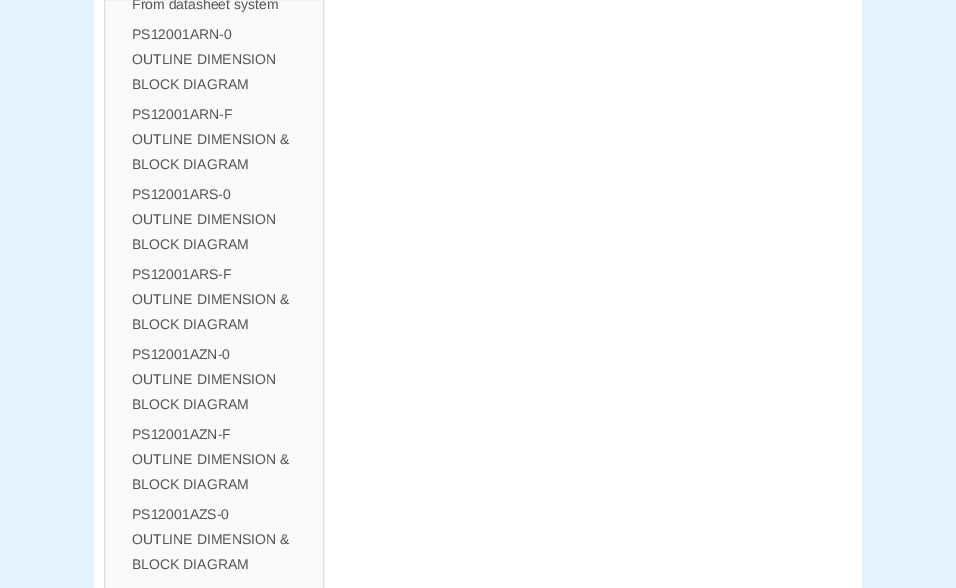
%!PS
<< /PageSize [956 588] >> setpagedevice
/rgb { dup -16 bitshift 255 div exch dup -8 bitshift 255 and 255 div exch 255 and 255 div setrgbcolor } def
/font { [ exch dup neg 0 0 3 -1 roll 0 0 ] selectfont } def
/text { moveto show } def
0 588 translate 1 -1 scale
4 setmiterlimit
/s1 { /LiberationSans-Regular 14 font 16#555555 rgb } def
16#E4F1FF rgb
0 0 956 588 rectfill
16#FFFFFF rgb
94 0 768 588 rectfill
16#FAFAFA rgb
104.5 -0.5 moveto 323.5 -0.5 lineto 323.5 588.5 lineto 104.5 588.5 lineto closepath gsave fill grestore
16#DDDDDD rgb
stroke
s1
(From datasheet system) 132 9 text
(PS12001ARN-0) 132 39 text
(OUTLINE DIMENSION) 132 64 text
(BLOCK DIAGRAM) 132 89 text
(PS12001ARN-F) 132 119 text
(OUTLINE DIMENSION &) 132 144 text
(BLOCK DIAGRAM) 132 169 text
(PS12001ARS-0) 132 199 text
(OUTLINE DIMENSION) 132 224 text
(BLOCK DIAGRAM) 132 249 text
(PS12001ARS-F) 132 279 text
(OUTLINE DIMENSION &) 132 304 text
(BLOCK DIAGRAM) 132 329 text
(PS12001AZN-0) 132 359 text
(OUTLINE DIMENSION) 132 384 text
(BLOCK DIAGRAM) 132 409 text
(PS12001AZN-F) 132 439 text
(OUTLINE DIMENSION &) 132 464 text
(BLOCK DIAGRAM) 132 489 text
(PS12001AZS-0) 132 519 text
(OUTLINE DIMENSION &) 132 544 text
(BLOCK DIAGRAM) 132 569 text
showpage
